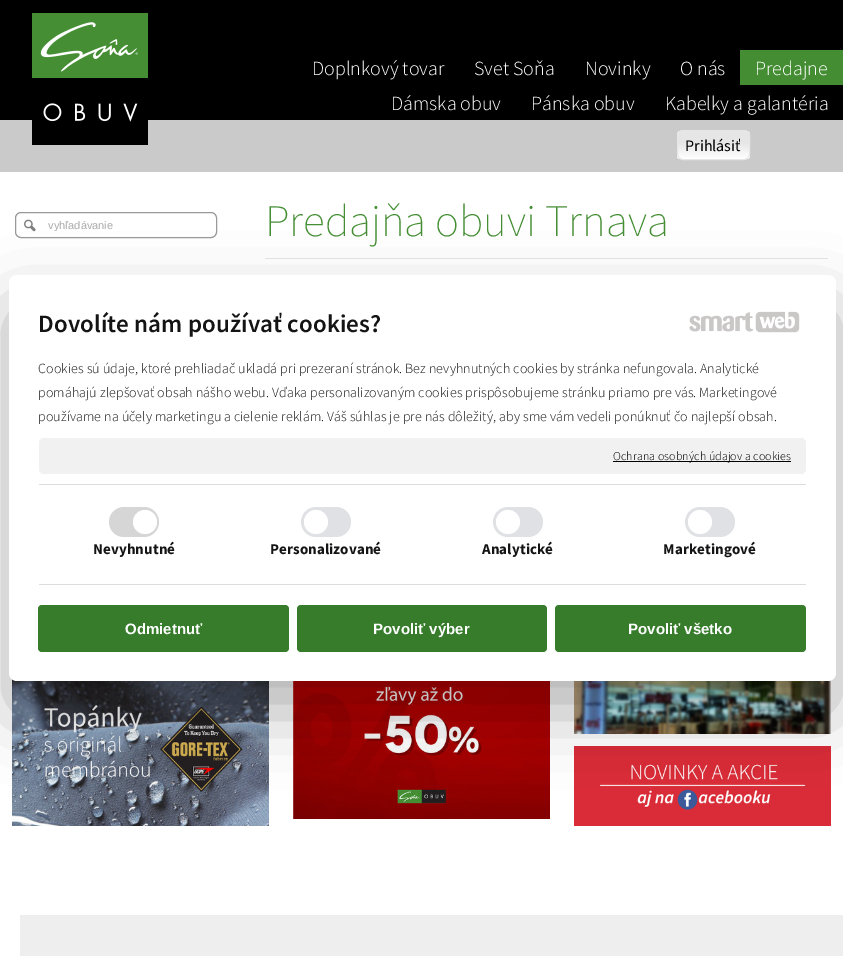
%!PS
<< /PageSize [843 956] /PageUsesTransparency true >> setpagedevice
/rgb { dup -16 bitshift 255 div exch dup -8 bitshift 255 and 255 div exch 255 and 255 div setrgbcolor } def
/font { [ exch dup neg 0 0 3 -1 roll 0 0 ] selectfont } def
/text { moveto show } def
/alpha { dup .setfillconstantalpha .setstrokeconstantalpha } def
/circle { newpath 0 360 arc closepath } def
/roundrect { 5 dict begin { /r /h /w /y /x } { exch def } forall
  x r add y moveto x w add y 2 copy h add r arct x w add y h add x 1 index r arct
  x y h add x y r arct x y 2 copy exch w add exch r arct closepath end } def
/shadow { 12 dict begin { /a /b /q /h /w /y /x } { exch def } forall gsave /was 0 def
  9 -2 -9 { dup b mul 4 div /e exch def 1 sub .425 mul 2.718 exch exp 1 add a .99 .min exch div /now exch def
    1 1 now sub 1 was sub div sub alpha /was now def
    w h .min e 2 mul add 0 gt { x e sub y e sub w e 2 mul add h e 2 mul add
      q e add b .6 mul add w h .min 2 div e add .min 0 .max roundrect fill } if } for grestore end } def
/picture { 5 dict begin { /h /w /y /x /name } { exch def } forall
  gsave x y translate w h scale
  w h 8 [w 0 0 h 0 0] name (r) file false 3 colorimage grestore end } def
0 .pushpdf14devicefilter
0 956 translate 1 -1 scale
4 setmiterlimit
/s1 { /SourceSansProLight-Light 20 font 16#FFFFFF rgb } def
/s2 { /SourceSansPro-Regular 16 font 16#000000 rgb } def
/s3 { /LiberationSans-Regular 11 font 16#AAAAAA rgb } def
/s4 { /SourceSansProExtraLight-ExtraLight 45 font 16#458E34 rgb } def
/s5 { /LiberationSans-Bold 15 font 16#FFFFFF rgb } def
16#FFFFFF rgb
0 0 843 956 rectfill
(pic1.raw) 0 0 843 172 picture
(pic2.raw) 32 13 116 132 picture
s1
(Doplnkový tovar) 312 75 text
(Svet Soňa) 474 75 text
(Novinky) 585 75 text
(O nás) 680 75 text
16#448D33 rgb
740 50 103 35 rectfill
s1
(Predajne) 755 75 text
(Dámska obuv) 391 110 text
(Pánska obuv) 531 110 text
(Kabelky a galantéria) 665 110 text
gsave
677 130 73 30 6 roundrect clip newpath
gsave 677 131 moveto 750 131 lineto 750 159 lineto 677 159 lineto closepath clip newpath
<< /ShadingType 2 /ColorSpace /DeviceRGB /Coords [713 131 713 159] /Extend [true true] /Function << /FunctionType 3 /Domain [0 1] /Functions [<< /FunctionType 2 /Domain [0 1] /C0 [0.902 0.902 0.902] /C1 [0.902 0.902 0.902] /N 1 >> << /FunctionType 2 /Domain [0 1] /C0 [0.902 0.902 0.902] /C1 [1 1 1] /N 1 >>] /Bounds [0.4] /Encode [0 1 0 1] >> >> shfill grestore
grestore
16#E6E6E6 rgb
677.5 130.5 72 29 5.5 roundrect stroke
s2
(Prihlásiť) 685 151 text
16#9A9A9A rgb
15.5 212.5 201 25 5.5 roundrect stroke
(pic3.raw) 24 219 12 13 picture
gsave
48 219 163 12 rectclip
s3
(vyhľadávanie) 48 229 text
grestore
s4
(Predajňa obuvi Trnava) 265 236 text
16#E6E6E6 rgb
265 258 563 1 rectfill
(pic4.raw) 12 679 257 147 picture
(pic5.raw) 293 681 257 138 picture
(pic6.raw) 574 680 257 54 picture
(pic7.raw) 574 746 257 80 picture
16#EEEEEE rgb
20 915 823 41 rectfill
16#000000 rgb
9 307 827 406 8 34 0.3 shadow
16#FFFFFF rgb
9 275 827 406 8 roundrect fill
/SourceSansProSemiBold-SemiBold 25 font
16#141414 rgb
38 332 moveto 0.1 0 (Dovolíte nám používať cookies?) ashow
(pic8.raw) 689 312 64 20 picture
(pic9.raw) 755 311 45 22 picture
/SourceSansProLight-Light 14 font
38 373 moveto 0.1 0 (Cookies sú údaje, ktoré prehliadač ukladá pri prezeraní stránok. Bez nevyhnutných cookies by stránka nefungovala. Analytické) ashow
38 397 moveto 0.1 0 (pomáhajú zlepšovať obsah nášho webu. Vďaka personalizovaným cookies prispôsobujeme stránku priamo pre vás. Marketingové) ashow
38 421 moveto 0.1 0 (používame na účely marketingu a cielenie reklám. Váš súhlas je pre nás dôležitý, aby sme vám vedeli ponúknuť čo najlepší obsah.) ashow
16#F1F1F1 rgb
39 438 767 36 5 roundrect fill
16#000000 rgb
613 461 178 1 rectfill
/SourceSansProLight-Light 12 font
613 460 moveto 0.1 0 (Ochrana osobných údajov a cookies) ashow
16#DDDDDD rgb
39 484 767 1 rectfill
39 584 767 1 rectfill
16#D6D6D6 rgb
109 507 50 30 15 roundrect fill
16#FFFFFF rgb
145 522 12 circle fill
/SourceSansPro-Bold 15 font
16#141414 rgb
93 554 moveto 0.1 0 (Nevyhnutné) ashow
16#DFE1E4 rgb
301 507 50 30 15 roundrect fill
16#FFFFFF rgb
316 522 12 circle fill
16#141414 rgb
270 554 moveto 0.1 0 (Personalizované) ashow
16#DFE1E4 rgb
493 507 50 30 15 roundrect fill
16#FFFFFF rgb
508 522 12 circle fill
16#141414 rgb
482 554 moveto 0.1 0 (Analytické) ashow
16#DFE1E4 rgb
685 507 50 30 15 roundrect fill
16#FFFFFF rgb
700 522 12 circle fill
16#141414 rgb
663 554 moveto 0.1 0 (Marketingové) ashow
16#367C2B rgb
38 605 251 47 4 roundrect fill
s5
(Odmietnuť) 125 634 text
16#367C2B rgb
297 605 250 47 4 roundrect fill
s5
(Povoliť výber) 373 634 text
16#367C2B rgb
555 605 251 47 4 roundrect fill
s5
(Povoliť všetko) 628 634 text
.poppdf14devicefilter showpage
